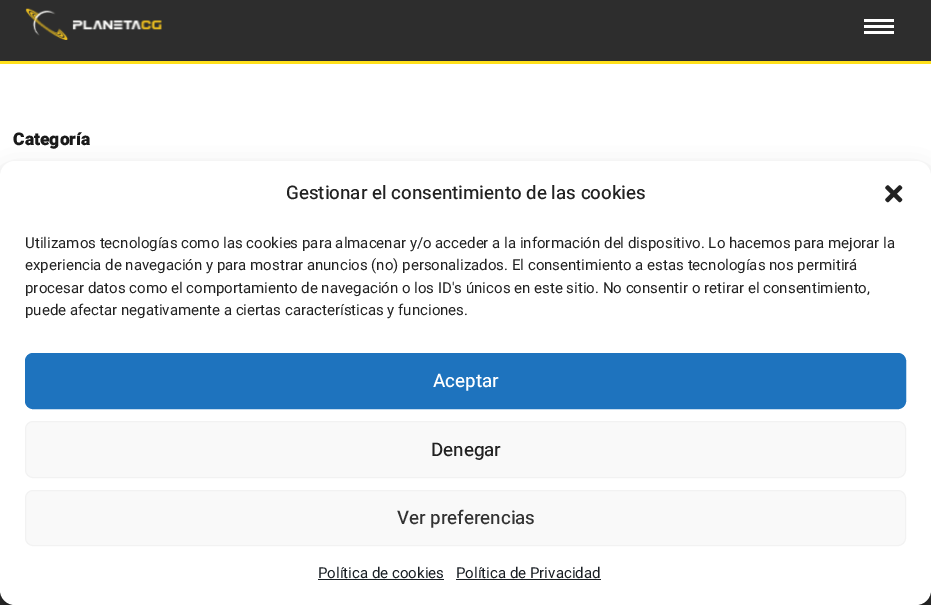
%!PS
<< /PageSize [931 605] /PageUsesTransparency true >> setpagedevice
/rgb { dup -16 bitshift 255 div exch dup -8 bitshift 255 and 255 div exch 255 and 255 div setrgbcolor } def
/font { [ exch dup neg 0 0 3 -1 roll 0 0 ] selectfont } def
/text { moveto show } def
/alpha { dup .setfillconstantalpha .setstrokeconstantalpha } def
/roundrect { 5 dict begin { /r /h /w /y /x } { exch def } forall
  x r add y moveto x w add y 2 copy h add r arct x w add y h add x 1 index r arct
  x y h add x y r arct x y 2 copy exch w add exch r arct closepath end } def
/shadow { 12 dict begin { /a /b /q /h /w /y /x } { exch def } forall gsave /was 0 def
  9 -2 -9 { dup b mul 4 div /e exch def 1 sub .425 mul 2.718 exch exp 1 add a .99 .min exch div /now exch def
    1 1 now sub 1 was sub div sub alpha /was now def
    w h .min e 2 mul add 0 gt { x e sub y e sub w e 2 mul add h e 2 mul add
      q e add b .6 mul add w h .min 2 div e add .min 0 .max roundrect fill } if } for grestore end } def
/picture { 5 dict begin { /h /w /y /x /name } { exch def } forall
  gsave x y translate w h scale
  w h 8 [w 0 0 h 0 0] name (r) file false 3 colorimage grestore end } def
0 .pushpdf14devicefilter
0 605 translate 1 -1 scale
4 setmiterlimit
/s1 { /Heebo-Black 17.5 font 16#1A1A1A rgb } def
/s2 { /Heebo-Medium 18.75 font 16#222222 rgb } def
/s3 { /Heebo-Regular 15 font 16#222222 rgb } def
/s4 { /Heebo-Medium 18.75 font 16#FFFFFF rgb } def
/s5 { /Heebo-Medium 18.75 font 16#333333 rgb } def
/s6 { /Heebo-Regular 15 font 16#191E23 rgb } def
16#FFFFFF rgb
0 0 931 605 rectfill
16#2D2D2D rgb
0 0 931 61 rectfill
16#FFE01B rgb
0 61 931 3 rectfill
(pic1.raw) 25 8 137 32 picture
16#FFFFFF rgb
864 25 30 3 rectfill
864 19 30 3 rectfill
864 31 30 3 rectfill
s1
(Categoría) 13 145 text
16#2D2D2D rgb
0 590 931 15 rectfill
16#000000 rgb
0 169 931 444 15 4 0.23 shadow
0 174 931 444 15 12.5 0.19 shadow
16#FFFFFF rgb
0 161 931 444 15 roundrect fill
s2
(Gestionar el consentimiento de las cookies) 286 199 text
(pic2.raw) 885 185 18 18 picture
s3
(Utilizamos tecnologías como las cookies para almacenar y/o acceder a la información del dispositivo. Lo hacemos para mejorar la) 25 248 text
(experiencia de navegación y para mostrar anuncios \(no\) personalizados. El consentimiento a estas tecnologías nos permitirá) 25 270 text
(procesar datos como el comportamiento de navegación o los ID's únicos en este sitio. No consentir o retirar el consentimiento,) 25 293 text
(puede afectar negativamente a ciertas características y funciones.) 25 315 text
16#1E73BE rgb
25.5 353.5 880 55 7.5 roundrect gsave fill grestore
stroke
s4
(Aceptar) 433 387 text
16#F9F9F9 rgb
25.5 421.5 880 56 7.5 roundrect gsave fill grestore
16#F2F2F2 rgb
stroke
s2
(Denegar) 431 456 text
16#F9F9F9 rgb
25.5 490.5 880 55 7.5 roundrect gsave fill grestore
16#F2F2F2 rgb
stroke
s5
(Ver preferencias) 397 524 text
s6
(Política de cookies) 318 578 text
318 579 126 1 rectfill
(Política de Privacidad) 456 578 text
456 579 145 1 rectfill
.poppdf14devicefilter showpage
